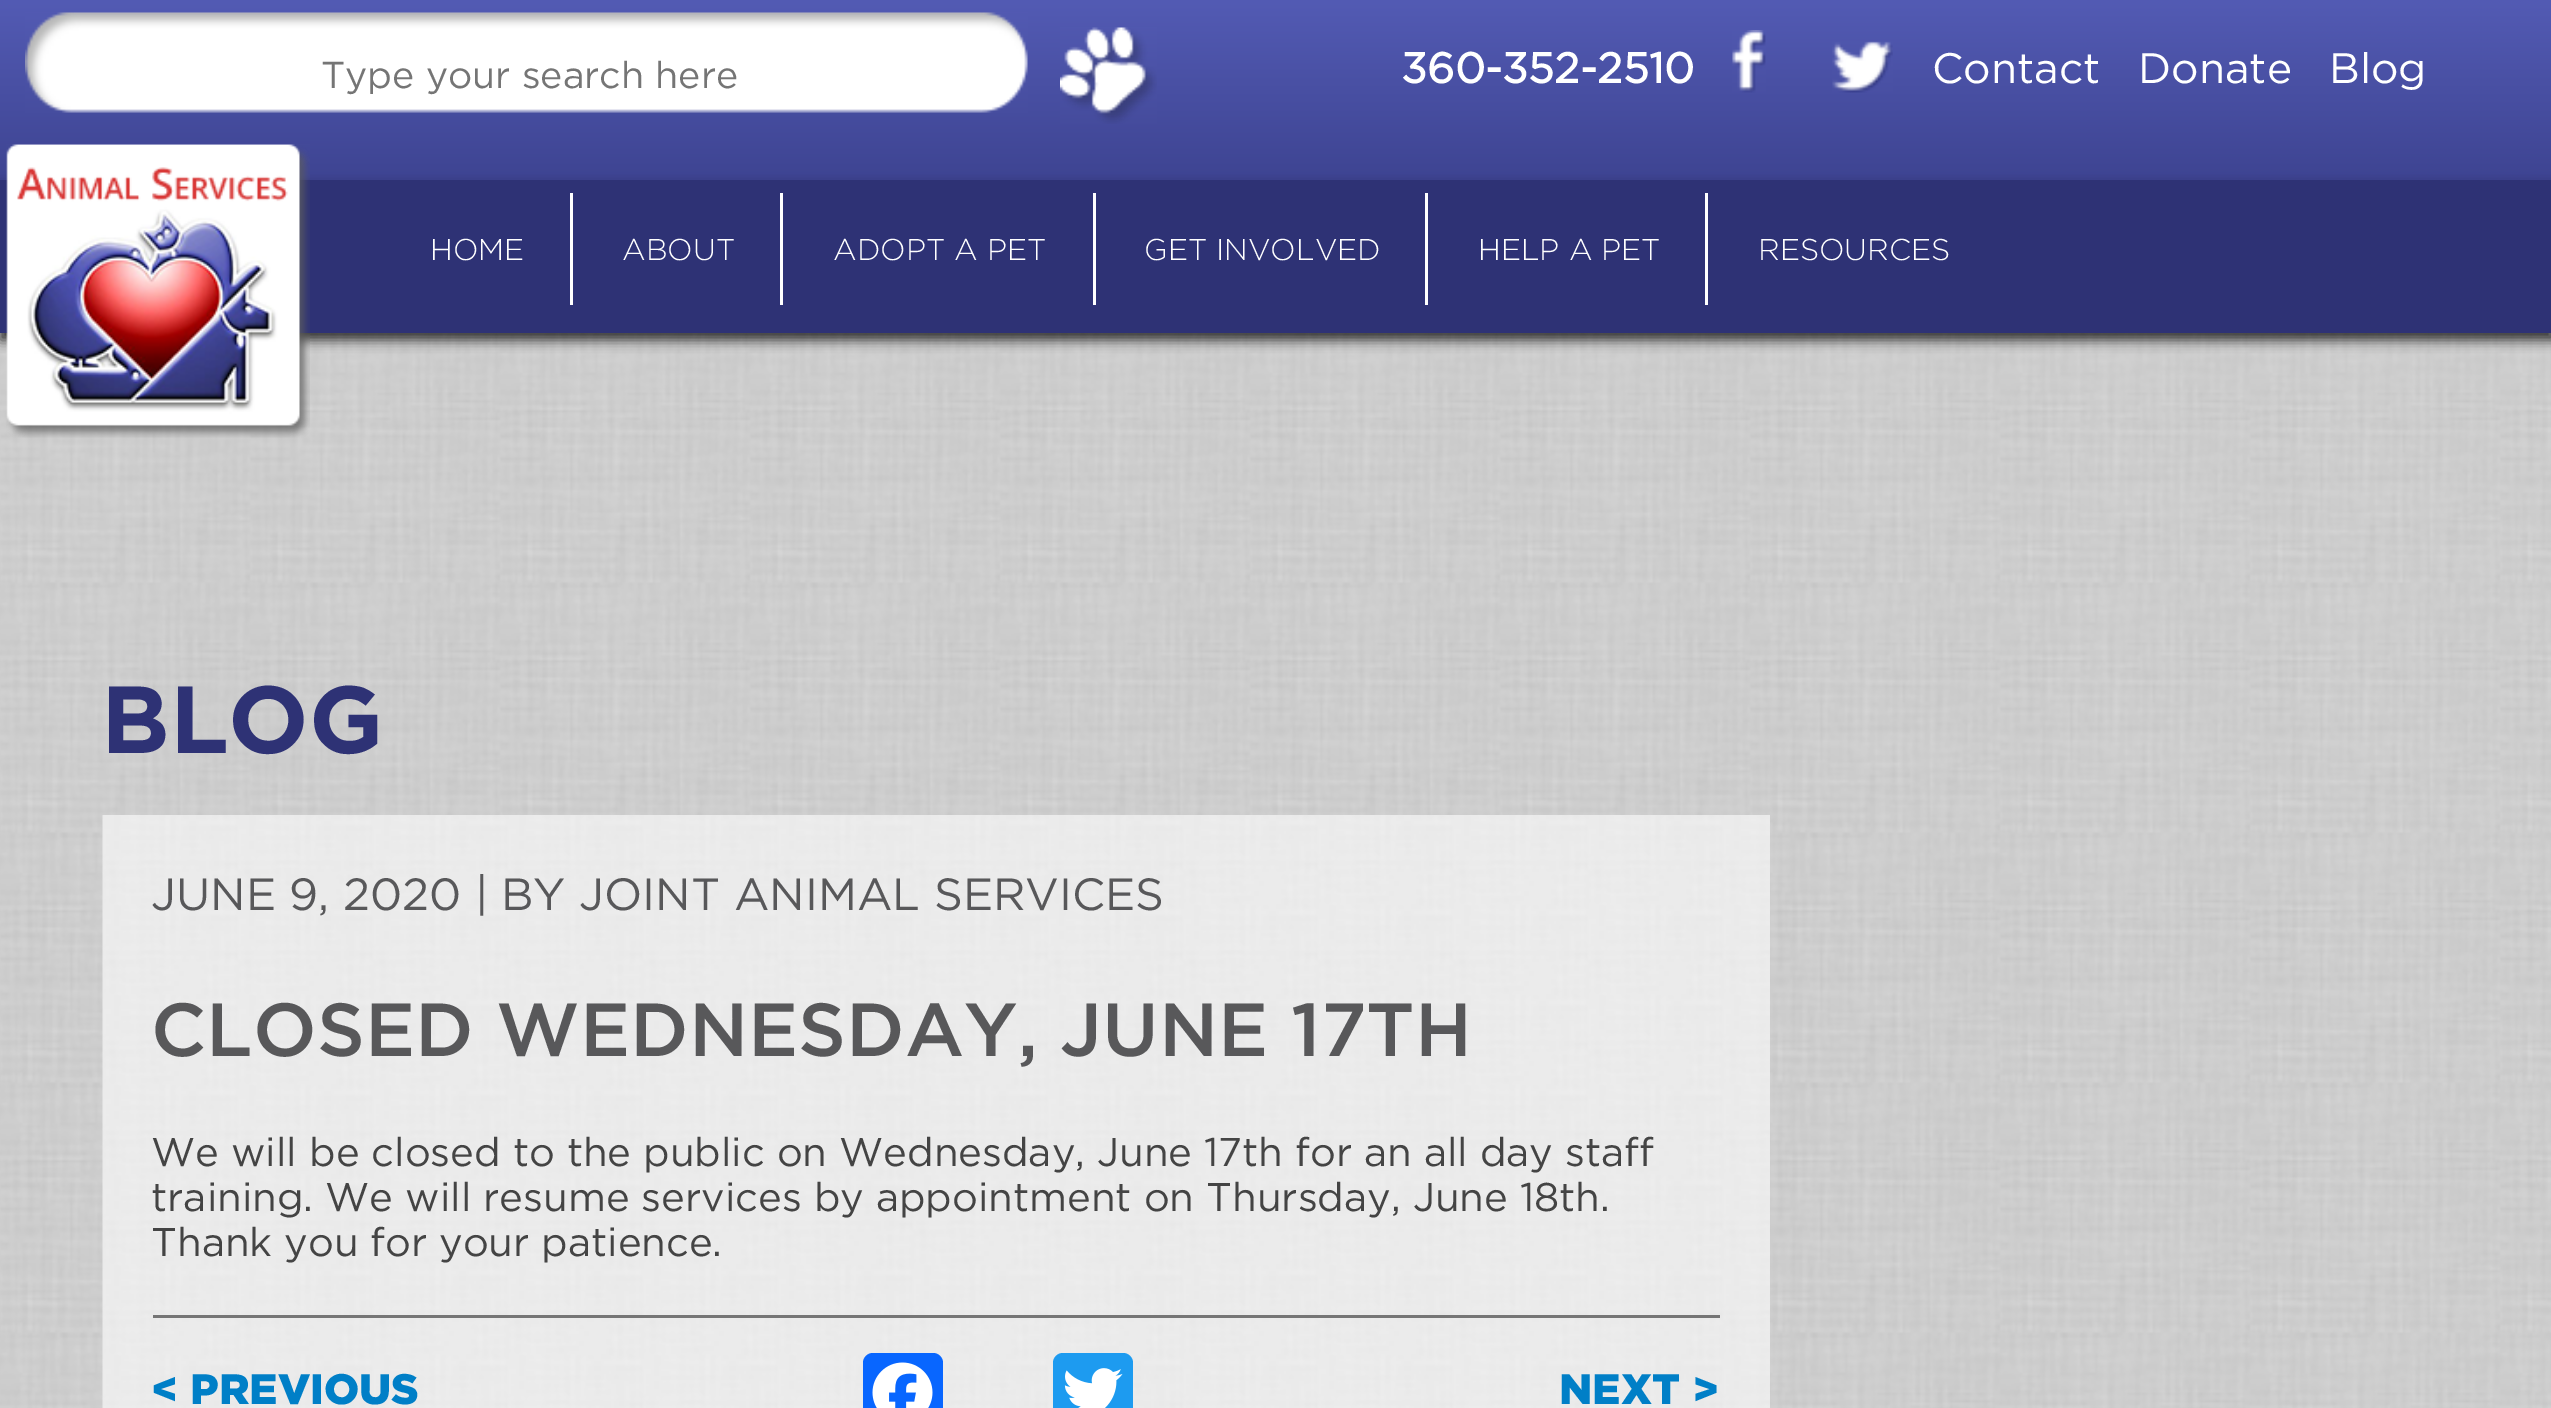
%!PS
<< /PageSize [2551 1408] /PageUsesTransparency true >> setpagedevice
/rgb { dup -16 bitshift 255 div exch dup -8 bitshift 255 and 255 div exch 255 and 255 div setrgbcolor } def
/font { [ exch dup neg 0 0 3 -1 roll 0 0 ] selectfont } def
/text { moveto show } def
/alpha { dup .setfillconstantalpha .setstrokeconstantalpha } def
/roundrect { 5 dict begin { /r /h /w /y /x } { exch def } forall
  x r add y moveto x w add y 2 copy h add r arct x w add y h add x 1 index r arct
  x y h add x y r arct x y 2 copy exch w add exch r arct closepath end } def
/shadow { 12 dict begin { /a /b /q /h /w /y /x } { exch def } forall gsave /was 0 def
  9 -2 -9 { dup b mul 4 div /e exch def 1 sub .425 mul 2.718 exch exp 1 add a .99 .min exch div /now exch def
    1 1 now sub 1 was sub div sub alpha /was now def
    w h .min e 2 mul add 0 gt { x e sub y e sub w e 2 mul add h e 2 mul add
      q e add b .6 mul add w h .min 2 div e add .min 0 .max roundrect fill } if } for grestore end } def
/picture { 5 dict begin { /h /w /y /x /name } { exch def } forall
  gsave x y translate w h scale
  w h 8 [w 0 0 h 0 0] name (r) file false 3 colorimage grestore end } def
0 .pushpdf14devicefilter
0 1408 translate 1 -1 scale
4 setmiterlimit
/s1 { /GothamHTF-Regular 37.5 font 16#757575 rgb } def
/s2 { /GothamHTF-Bold 42.5 font 16#FFFFFF rgb } def
/s3 { /GothamHTF-Regular 42.5 font 16#FFFFFF rgb } def
/s4 { /GothamHTF-Light 30 font 16#FFFFFF rgb } def
/s5 { /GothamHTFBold-Bold 95 font 16#2E3275 rgb } def
/s6 { /GothamHTF-Regular 45 font 16#58585A rgb } def
/s7 { /GothamHTF-Medium 75 font 16#58585A rgb } def
/s8 { /GothamHTF-Regular 40 font 16#444444 rgb } def
/s9 { /GothamHTF-Black 42.5 font 16#007FC7 rgb } def
16#FFFFFF rgb
0 0 2551 1408 rectfill
gsave 0 0 moveto 2551 0 lineto 2551 180 lineto 0 180 lineto closepath clip newpath
<< /ShadingType 2 /ColorSpace /DeviceRGB /Coords [1276 0 1276 333] /Extend [true true] /Function << /FunctionType 2 /Domain [0 1] /C0 [0.325 0.357 0.706] /C1 [0.176 0.192 0.459] /N 1 >> >> shfill grestore
(pic1.raw) 25 12 1003 101 picture
s1
(Type your search here) 321 88 text
(pic2.raw) 1060 27 97 97 picture
s2
(360-352-2510) 1401 83 text
(pic3.raw) 1732 30 34 63 picture
(pic4.raw) 1832 41 61 52 picture
s3
(Contact) 1932 83 text
(Donate) 2138 83 text
(Blog) 2329 83 text
(pic6.raw) 0 333 2551 1075 picture
16#000000 rgb
0 188 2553 152 0 6 0.75 shadow
16#2E3275 rgb
0 180 2551 153 rectfill
(pic5.raw) 6 144 304 294 picture
16#FFFFFF rgb
570 193 3 112 rectfill
s4
(HOME) 430 260 text
780 193 3 112 rectfill
(ABOUT) 622 260 text
1093 193 3 112 rectfill
(ADOPT A PET) 833 260 text
1425 193 3 112 rectfill
(GET INVOLVED) 1144 260 text
1705 193 3 112 rectfill
(HELP A PET) 1478 260 text
(RESOURCES) 1758 260 text
s5
(BLOG) 101 753 text
(pic7.raw) 102 815 1668 593 picture
s6
(JUNE 9, 2020 |) 151 910 text
(BY JOINT ANIMAL SERVICES) 501 910 text
s7
(CLOSED WEDNESDAY, JUNE 17TH) 151 1056 text
s8
(We will be closed to the public on Wednesday, June 17th for an all day staff) 151 1166 text
(training. We will resume services by appointment on Thursday, June 18th.) 151 1211 text
(Thank you for your patience.) 151 1256 text
16#757575 rgb
153 1315 1567 3 rectfill
16#0866FF rgb
863 1353 80 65 10 roundrect fill
(pic8.raw) 872 1362 61 46 picture
16#1D9BF0 rgb
1053 1353 80 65 10 roundrect fill
(pic9.raw) 1064 1368 59 40 picture
s9
(< PREVIOUS) 151 1404 text
(NEXT >) 1559 1404 text
.poppdf14devicefilter showpage
